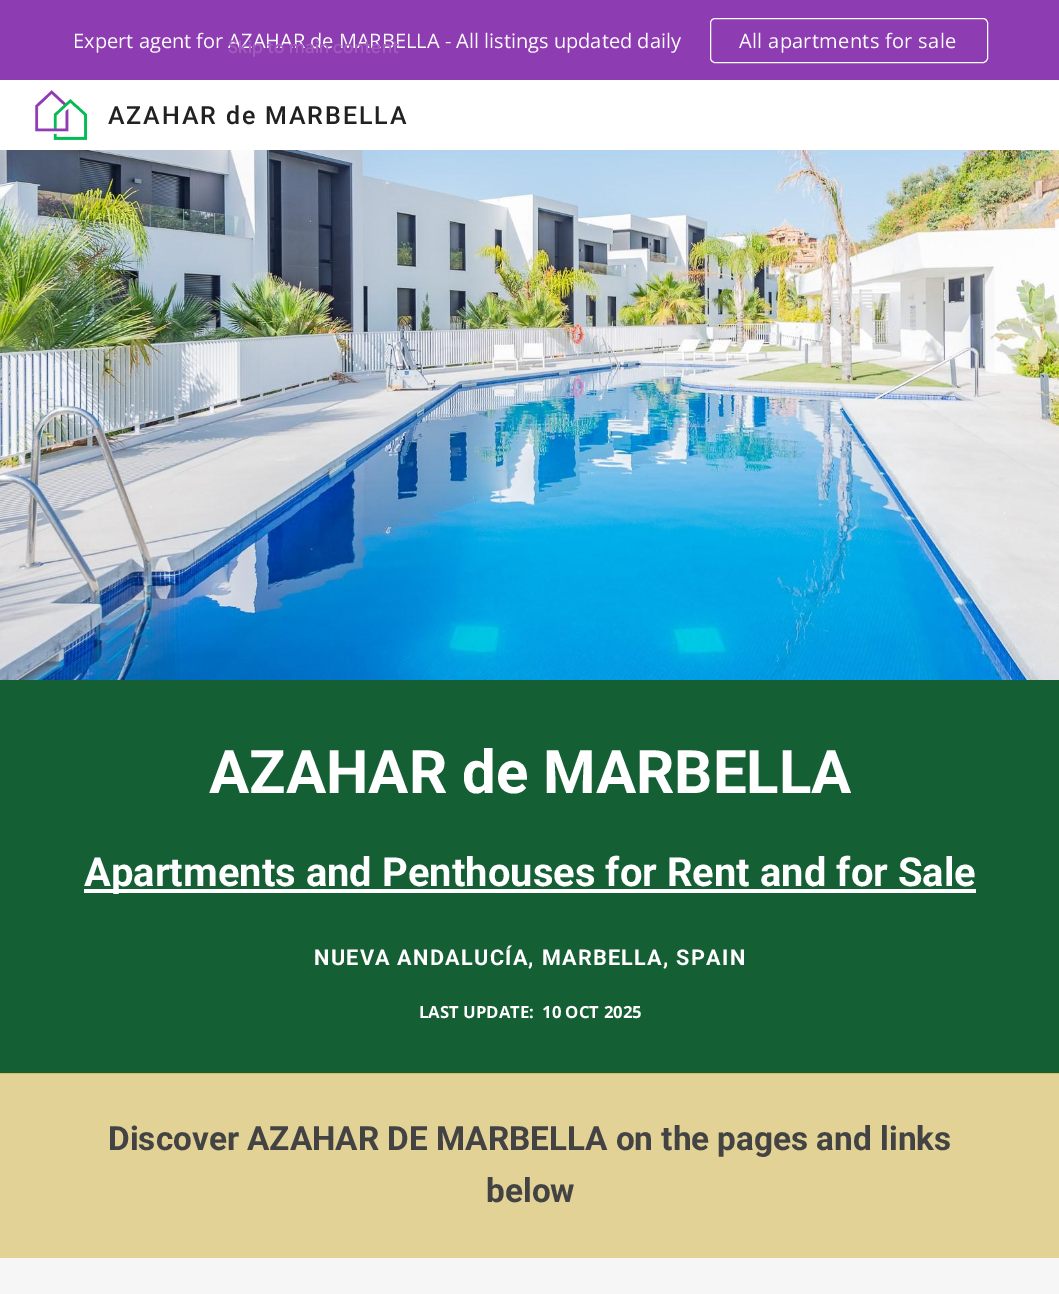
%!PS
<< /PageSize [1059 1294] >> setpagedevice
/rgb { dup -16 bitshift 255 div exch dup -8 bitshift 255 and 255 div exch 255 and 255 div setrgbcolor } def
/font { [ exch dup neg 0 0 3 -1 roll 0 0 ] selectfont } def
/text { moveto show } def
/roundrect { 5 dict begin { /r /h /w /y /x } { exch def } forall
  x r add y moveto x w add y 2 copy h add r arct x w add y h add x 1 index r arct
  x y h add x y r arct x y 2 copy exch w add exch r arct closepath end } def
/picture { 5 dict begin { /h /w /y /x /name } { exch def } forall
  gsave x y translate w h scale
  w h 8 [w 0 0 h 0 0] name (r) file false 3 colorimage grestore end } def
0 1294 translate 1 -1 scale
4 setmiterlimit
/s1 { /OpenSans-Regular 20 font 16#FFFFFF rgb } def
/s2 { /Roboto-Bold 60 font 16#FFFFFF rgb } def
/s3 { /Roboto-Bold 40 font 16#FFFFFF rgb } def
/s4 { /OpenSans-Bold 16.75 font 16#FFFFFF rgb } def
/s5 { /Roboto-Bold 33.3 font 16#434343 rgb } def
16#FFFFFF rgb
0 0 1059 1294 rectfill
16#8E3CB1 rgb
0 0 1059 80 rectfill
s1
(Expert agent for AZAHAR de MARBELLA - All listings updated daily) 73 48 text
710.5 18.5 277 44 4.5 roundrect stroke
739 48 moveto 0.3 0 (All apartments for sale) ashow
(pic1.raw) 35 90 53 51 picture
/Roboto-Medium 25 font
16#212121 rgb
108 124 moveto 1.9 0 (AZAHAR de MARBELLA) ashow
(pic2.raw) 0 150 1059 530 picture
16#155F35 rgb
0 680 1059 393 rectfill
s2
(AZAHAR de MARBELLA) 209 793 text
84 889 892 4 rectfill
s3
(Apartments and Penthouses for Rent and for Sale) 84 886 text
/Roboto-Bold 21.7 font
314 965 moveto 1.25 0 (NUEVA ANDALUCÍA, MARBELLA, SPAIN) ashow
s4
(LAST UPDATE:) 419 1018 text
(10 OCT 2025) 542 1018 text
16#D7BE69 rgb
0 1073 1059 1 rectfill
16#E3D296 rgb
0 1074 1059 184 rectfill
s5
(Discover AZAHAR DE MARBELLA on the pages and links) 108 1150 text
(below) 486 1202 text
16#F6F6F6 rgb
0 1258 1059 36 rectfill
/GoogleSans-Medium 17.5 font
16#A05BBD rgb
228 53 moveto 0.2 0 (Skip to main content) ashow
showpage
